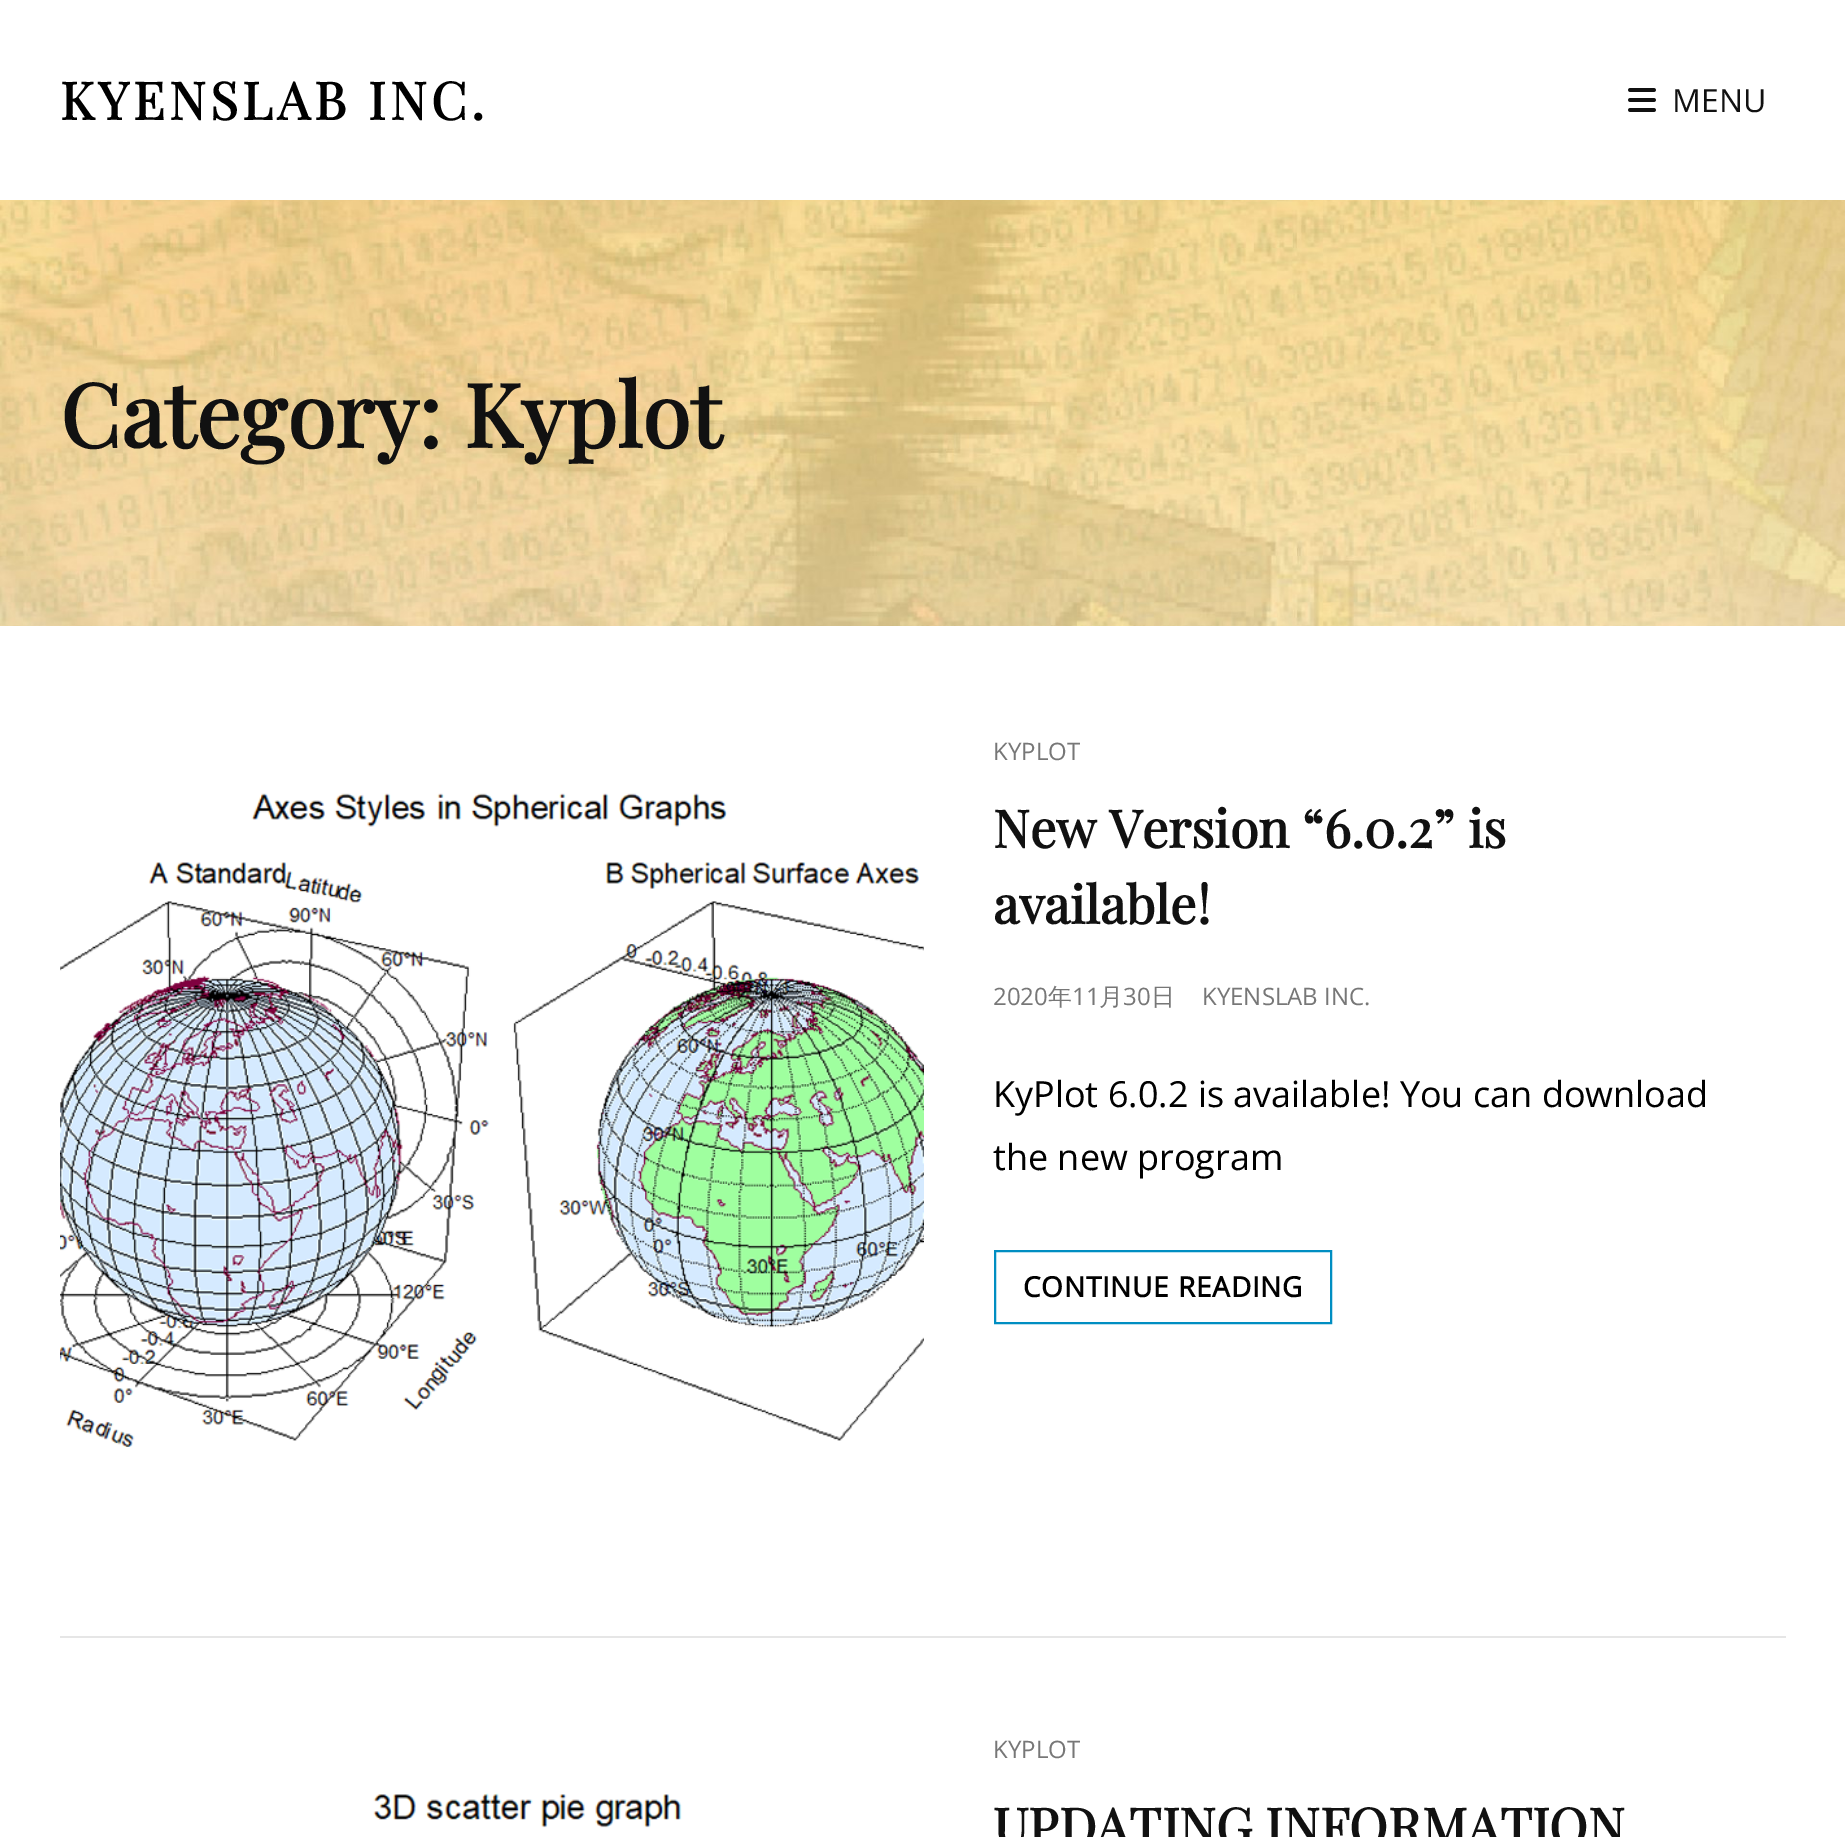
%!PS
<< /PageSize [1845 1837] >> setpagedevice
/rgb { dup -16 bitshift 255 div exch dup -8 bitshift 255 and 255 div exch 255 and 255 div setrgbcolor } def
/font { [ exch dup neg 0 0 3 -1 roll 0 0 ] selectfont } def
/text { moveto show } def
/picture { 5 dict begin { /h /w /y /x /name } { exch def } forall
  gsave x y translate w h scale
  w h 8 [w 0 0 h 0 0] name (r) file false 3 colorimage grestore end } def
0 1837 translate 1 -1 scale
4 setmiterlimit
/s1 { /OpenSans-Regular 32 font 16#111111 rgb } def
/s2 { /PlayfairDisplay-Bold 88 font 16#111111 rgb } def
/s3 { /OpenSans-Regular 24 font 16#777777 rgb } def
/s4 { /PlayfairDisplay-Bold 52 font 16#111111 rgb } def
/s5 { /WenQuanYiZenHei-Medium 24 font 16#777777 rgb } def
/s6 { /OpenSans-Regular 36 font 16#000000 rgb } def
16#FFFFFF rgb
0 0 1845 1837 rectfill
/PlayfairDisplay-Bold 52 font
16#000000 rgb
60 120 moveto 4.25 0 (KYENSLAB INC.) ashow
(pic1.raw) 1628 88 28 24 picture
s1
(MENU) 1672 112 text
(pic2.raw) 0 200 1845 426 picture
s2
(Category: Kyplot) 60 448 text
16#E6E6E6 rgb
60 1636 1726 2 rectfill
(pic3.raw) 60 793 864 654 picture
s3
(KYPLOT) 993 760 text
s4
(New Version “6.0.2” is) 993 848 text
(available!) 993 924 text
s3
(2020) 993 1005 text
s5
(年) 1048 1005 text
s3
(11) 1072 1005 text
s5
(月) 1099 1005 text
s3
(30) 1123 1005 text
s5
(日) 1151 1005 text
s3
(KYENSLAB INC.) 1202 1005 text
s6
(KyPlot 6.0.2 is available! You can download) 993 1107 text
(the new program) 993 1170 text
16#008EC2 rgb
2 setlinewidth
995 1251 336 72 rectstroke
/OpenSans-Bold 28 font
16#000000 rgb
1023 1297 moveto 0.75 0 (CONTINUE READING) ashow
(pic4.raw) 373 1793 309 35 picture
s3
(KYPLOT) 993 1758 text
s4
(UPDATING INFORMATION) 993 1846 text
showpage
